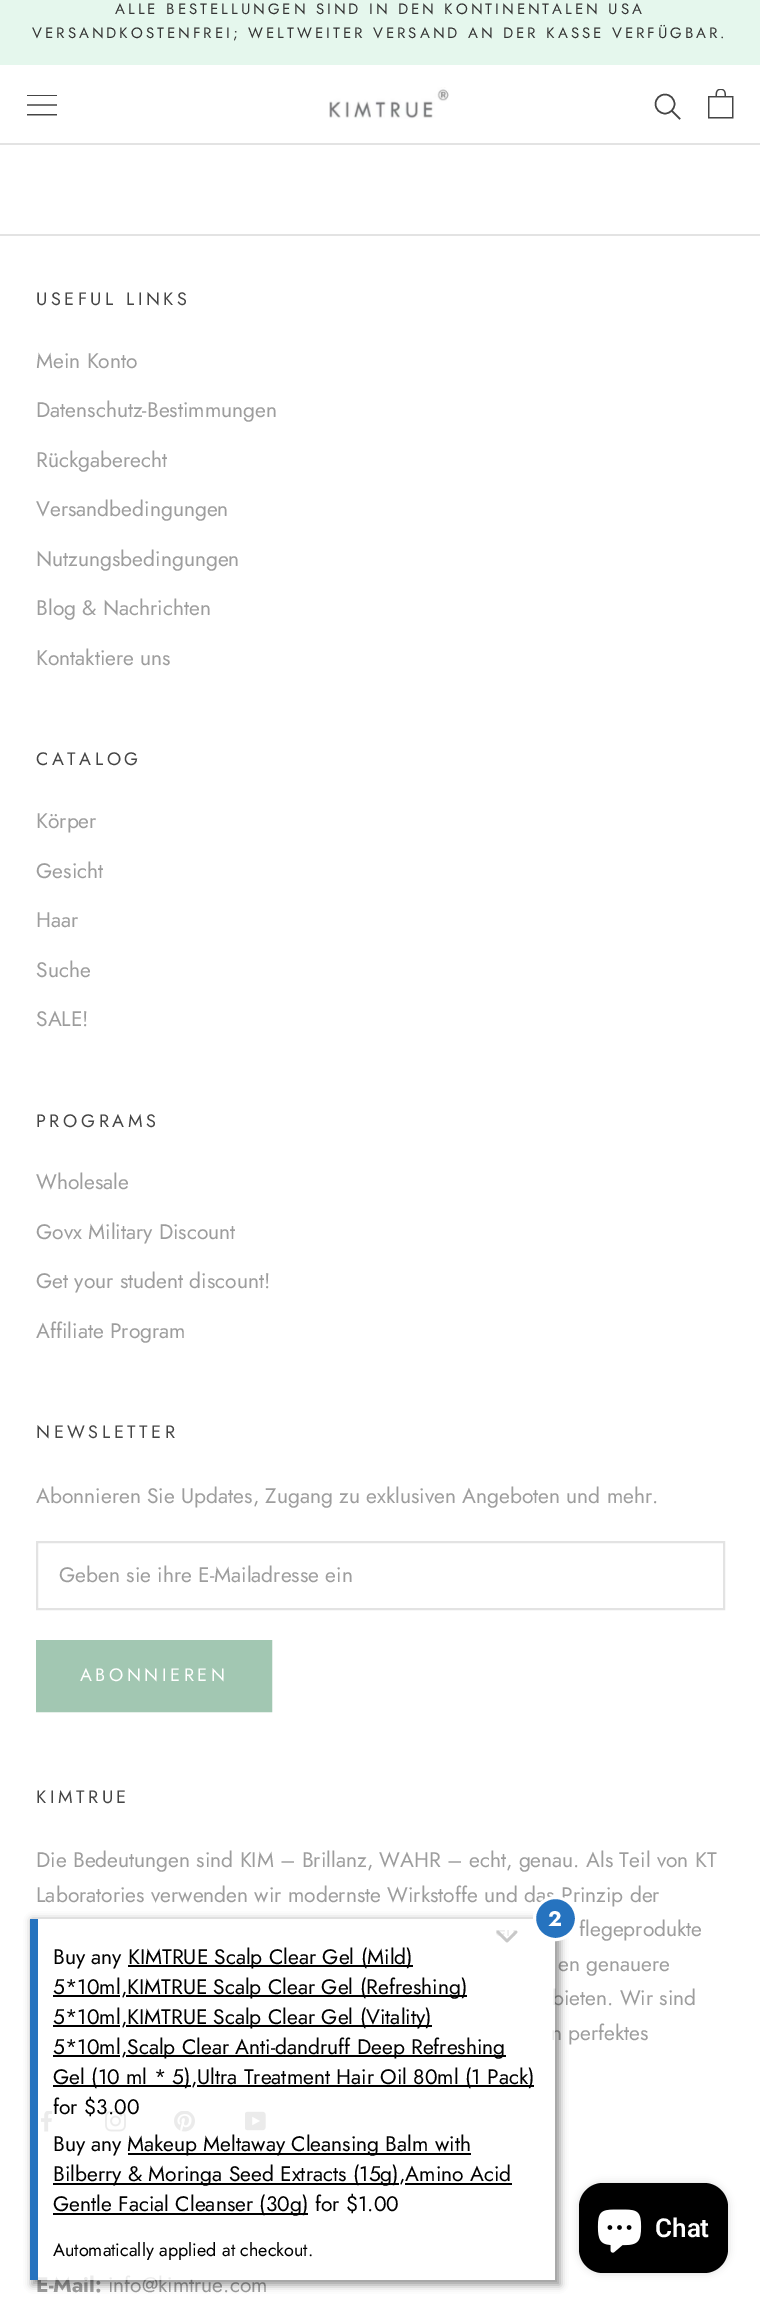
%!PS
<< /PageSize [760 2304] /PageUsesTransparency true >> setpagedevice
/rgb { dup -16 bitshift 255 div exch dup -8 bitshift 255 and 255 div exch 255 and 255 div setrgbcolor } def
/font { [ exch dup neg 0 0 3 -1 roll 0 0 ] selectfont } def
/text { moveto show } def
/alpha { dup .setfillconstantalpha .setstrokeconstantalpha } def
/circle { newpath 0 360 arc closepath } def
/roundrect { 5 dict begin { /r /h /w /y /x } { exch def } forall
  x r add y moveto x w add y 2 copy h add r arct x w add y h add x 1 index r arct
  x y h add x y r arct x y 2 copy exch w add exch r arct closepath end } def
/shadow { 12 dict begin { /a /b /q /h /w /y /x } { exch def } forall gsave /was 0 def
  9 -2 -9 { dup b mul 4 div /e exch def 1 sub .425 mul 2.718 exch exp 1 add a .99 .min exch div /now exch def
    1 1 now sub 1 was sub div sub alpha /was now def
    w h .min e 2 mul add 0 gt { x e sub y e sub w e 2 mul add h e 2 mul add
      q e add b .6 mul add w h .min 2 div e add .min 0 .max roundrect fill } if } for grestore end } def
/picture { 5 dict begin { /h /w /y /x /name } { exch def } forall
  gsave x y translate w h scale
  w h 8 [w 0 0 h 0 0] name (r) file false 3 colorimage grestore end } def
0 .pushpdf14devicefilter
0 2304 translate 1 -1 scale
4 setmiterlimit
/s1 { /Jost-Regular 21 font 16#9D9D9D rgb } def
/s2 { /Jost-Bold 21 font 16#9D9D9D rgb } def
/s3 { /Jost-Bold 21 font 16#FFFFFF rgb } def
/s4 { /Jost-Regular 21 font 16#000000 rgb } def
/s5 { /Jost-Regular 18 font 16#000000 rgb } def
/s6 { /Roboto-SemiBold 26 font 16#FFFFFF rgb } def
16#FFFFFF rgb
0 0 760 2304 rectfill
16#E5F7ED rgb
0 0 760 65 rectfill
/Jost-Regular 15 font
16#343434 rgb
115 14 moveto 3 0 (ALLE BESTELLUNGEN SIND IN DEN KONTINENTALEN USA) ashow
32 38 moveto 3 0 (VERSANDKOSTENFREI; WELTWEITER VERSAND AN DER KASSE VERFÜGBAR.) ashow
16#E3E3E3 rgb
0 143 760 2 rectfill
(pic1.raw) 27 95 30 21 picture
(pic2.raw) 329 87 120 32 picture
16#454545 rgb
1.5 setlinewidth
2 setlinecap
679.5 118.5 moveto 672 111 lineto stroke
0 setlinecap
665 104 9.5 circle stroke
(pic3.raw) 708 89 26 30 picture
16#E3E3E3 rgb
0 234 760 2 rectfill
/Jost-Regular 18 font
16#454545 rgb
36 305 moveto 3.6 0 (USEFUL LINKS) ashow
s1
(Mein Konto) 36 368 text
(Datenschutz-Bestimmungen) 36 417 text
(Rückgaberecht) 36 467 text
(Versandbedingungen) 36 516 text
(Nutzungsbedingungen) 36 566 text
(Blog & Nachrichten) 36 615 text
(Kontaktiere uns) 36 665 text
/Jost-Regular 18 font
16#454545 rgb
36 765 moveto 3.6 0 (CATALOG) ashow
s1
(Körper) 36 828 text
(Gesicht) 36 878 text
(Haar) 36 927 text
(Suche) 36 977 text
(SALE!) 36 1026 text
/Jost-Regular 18 font
16#454545 rgb
36 1127 moveto 3.6 0 (PROGRAMS) ashow
s1
(Wholesale) 36 1189 text
(Govx Military Discount) 36 1239 text
(Get your student discount!) 36 1288 text
(Affiliate Program) 36 1338 text
/Jost-Regular 18 font
16#454545 rgb
36 1438 moveto 3.6 0 (NEWSLETTER) ashow
s1
(Abonnieren Sie Updates, Zugang zu exklusiven Angeboten und mehr.) 36 1503 text
16#E3E3E3 rgb
2 setlinewidth
37 1542 687 67 rectstroke
s1
(Geben sie ihre E-Mailadresse ein) 59 1582 text
16#A2C7B2 rgb
37 1641 234 70 rectstroke
38 1642 232 68 rectfill
/Jost-Regular 18 font
16#FFFFFF rgb
80 1681 moveto 3.6 0 (ABONNIEREN) ashow
16#454545 rgb
36 1803 moveto 3.6 0 (KIMTRUE) ashow
s1
(Die Bedeutungen sind KIM – Brillanz, WAHR – echt, genau. Als Teil von KT) 36 1867 text
(Laboratories verwenden wir modernste Wirkstoffe und das Prinzip der) 36 1902 text
(flegeprodukte) 579 1936 text
(en genauere) 558 1971 text
(bieten. Wir sind) 552 2005 text
(n perfektes) 551 2040 text
(pic4.raw) 40 2111 13 21 picture
(pic5.raw) 105 2111 21 21 picture
(pic6.raw) 174 2111 21 21 picture
(pic7.raw) 245 2111 21 20 picture
s2
(E-Mail:) 36 2292 text
s1
(info@kimtrue.com) 108 2292 text
gsave
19 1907 moveto 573 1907 lineto 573 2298 lineto 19 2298 lineto closepath 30 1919 moveto 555 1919 lineto 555 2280 lineto 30 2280 lineto closepath eoclip newpath
16#000000 rgb
32 1920 528 365 0 4 0.4 shadow
grestore
0.8 alpha
16#FFFFFF rgb
38 1988 517 292 rectfill
1 alpha
16#2673BF rgb
555.5 1918.5 21 circle gsave fill grestore
16#FFFFFF rgb
3 setlinewidth
stroke
s3
(2) 548 1926 text
16#2673BF rgb
30 1919 8 361 rectfill
(pic8.raw) 496 1930 22 13 picture
s4
(Buy any KIMTRUE) 53 1964 text
128 1965 285 2 rectfill
(Scalp Clear Gel \(Mild\)) 214 1964 text
53 1995 67 2 rectfill
(5*10ml,KIMTRUE) 53 1994 text
126 1995 341 2 rectfill
(Scalp Clear Gel \(Refreshing\)) 213 1994 text
53 2025 67 2 rectfill
(5*10ml,KIMTRUE) 53 2024 text
126 2025 306 2 rectfill
(Scalp Clear Gel \(Vitality\)) 213 2024 text
53 2055 67 2 rectfill
(5*10ml,) 53 2054 text
126 2055 380 2 rectfill
(Scalp Clear Anti-dandruff Deep Refreshing) 127 2054 text
53 2085 138 2 rectfill
(Gel \(10 ml * 5\),) 53 2084 text
197 2085 337 2 rectfill
(Ultra Treatment Hair Oil 80ml \(1 Pack\)) 197 2084 text
(for $3.00) 53 2114 text
(Buy any) 53 2151 text
128 2153 343 2 rectfill
(Makeup Meltaway Cleansing Balm with) 127 2151 text
53 2183 346 2 rectfill
(Bilberry & Moringa Seed Extracts \(15g\),Amino Acid) 53 2181 text
405 2183 107 2 rectfill
53 2213 255 2 rectfill
(Gentle Facial Cleanser \(30g\) for $1.00) 53 2211 text
s5
(Automatically applied at checkout.) 53 2256 text
579 2183 149 90 24 4 0.15 shadow
579 2183 149 90 24 roundrect fill
(pic9.raw) 597 2209 45 44 picture
s6
(Chat) 655 2237 text
.poppdf14devicefilter showpage
